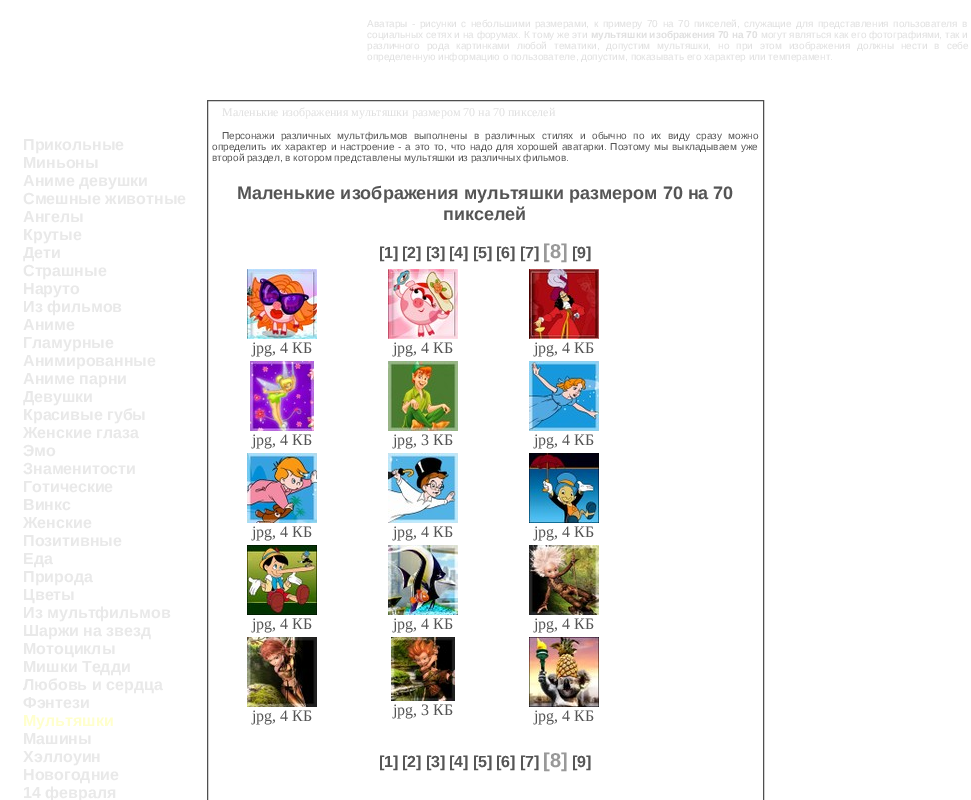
%!PS
<< /PageSize [971 800] >> setpagedevice
/rgb { dup -16 bitshift 255 div exch dup -8 bitshift 255 and 255 div exch 255 and 255 div setrgbcolor } def
/font { [ exch dup neg 0 0 3 -1 roll 0 0 ] selectfont } def
/text { moveto show } def
/picture { 5 dict begin { /h /w /y /x /name } { exch def } forall
  gsave x y translate w h scale
  w h 8 [w 0 0 h 0 0] name (r) file false 3 colorimage grestore end } def
0 800 translate 1 -1 scale
4 setmiterlimit
/s1 { /LiberationSans-Regular 10 font 16#E0E0E0 rgb } def
/s2 { /LiberationSans-Bold 10 font 16#E0E0E0 rgb } def
/s3 { /LiberationSans-Bold 16 font 16#E9E9E9 rgb } def
/s4 { /LiberationSans-Bold 16 font 16#FFFFCC rgb } def
/s5 { /LiberationSerif-Regular 12 font 16#E0E0E0 rgb } def
/s6 { /LiberationSans-Regular 10 font 16#555555 rgb } def
/s7 { /LiberationSans-Bold 18 font 16#555555 rgb } def
/s8 { /LiberationSans-Bold 16 font 16#555555 rgb } def
/s9 { /LiberationSans-Bold 20 font 16#999999 rgb } def
/s10 { /LiberationSerif-Regular 16 font 16#555555 rgb } def
16#FFFFFF rgb
0 0 971 800 rectfill
/LiberationSans-Regular 10 font
16#E0E0E0 rgb
367 27 moveto 1.8 0 32 (Аватары - рисунки с небольшими размерами, к примеру 70 на 70 пикселей, служащие для представления пользователя в) widthshow
(социальных сетях и на форумах. К тому же эти) 367 38 text
s2
(мультяшки изображения 70 на 70) 591 38 text
s1
(могут являться как его фотографиями, так и) 761 38 text
367 49 moveto 4.25 0 32 (различного рода картинками любой тематики, допустим мультяшки, но при этом изображения должны нести в себе) widthshow
(определенную информацию о пользователе, допустим, показывать его характер или темперамент.) 367 60 text
s3
(Прикольные) 23 150 text
(Миньоны) 23 168 text
(Аниме девушки) 23 186 text
(Смешные животные) 23 204 text
(Ангелы) 23 222 text
(Крутые) 23 240 text
(Дети) 23 258 text
(Страшные) 23 276 text
(Наруто) 23 294 text
(Из фильмов) 23 312 text
(Аниме) 23 330 text
(Гламурные) 23 348 text
(Анимированные) 23 366 text
(Аниме парни) 23 384 text
(Девушки) 23 402 text
(Красивые губы) 23 420 text
(Женские глаза) 23 438 text
(Эмо) 23 456 text
(Знаменитости) 23 474 text
(Готические) 23 492 text
(Винкс) 23 510 text
(Женские) 23 528 text
(Позитивные) 23 546 text
(Еда) 23 564 text
(Природа) 23 582 text
(Цветы) 23 600 text
(Из мультфильмов) 23 618 text
(Шаржи на звезд) 23 636 text
(Мотоциклы) 23 654 text
(Мишки Тедди) 23 672 text
(Любовь и сердца) 23 690 text
(Фэнтези) 23 708 text
s4
(Мультяшки) 23 726 text
s3
(Машины) 23 744 text
(Хэллоуин) 23 762 text
(Новогодние) 23 780 text
(14 февраля) 23 798 text
16#4F4F4F rgb
207.5 100.5 556 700 rectstroke
s5
(Маленькие изображения мультяшки размером 70 на 70 пикселей) 222 116 text
/LiberationSans-Regular 10 font
16#555555 rgb
222 139 moveto 3.75 0 32 (Персонажи различных мультфильмов выполнены в различных стилях и обычно по их виду сразу можно) widthshow
212 150 moveto 1.1 0 32 (определить их характер и настроение - а это то, что надо для хорошей аватарки. Поэтому мы выкладываем уже) widthshow
(второй раздел, в котором представлены мультяшки из различных фильмов.) 212 161 text
s7
(Маленькие изображения мультяшки размером 70 на 70) 237 199 text
(пикселей) 443 220 text
s8
([1]) 379 258 text
([2]) 402 258 text
([3]) 426 258 text
([4]) 449 258 text
([5]) 473 258 text
([6]) 496 258 text
([7]) 520 258 text
s9
([8]) 543 258 text
s8
([9]) 572 258 text
(pic1.raw) 247 269 70 70 picture
s10
(jpg, 4 КБ) 252 353 text
(pic2.raw) 388 269 70 70 picture
(jpg, 4 КБ) 393 353 text
(pic3.raw) 529 269 70 70 picture
(jpg, 4 КБ) 534 353 text
(pic4.raw) 250 361 64 70 picture
(jpg, 4 КБ) 252 445 text
(pic5.raw) 388 361 70 70 picture
(jpg, 3 КБ) 393 445 text
(pic6.raw) 529 361 70 70 picture
(jpg, 4 КБ) 534 445 text
(pic7.raw) 247 453 70 70 picture
(jpg, 4 КБ) 252 537 text
(pic8.raw) 388 453 70 70 picture
(jpg, 4 КБ) 393 537 text
(pic9.raw) 529 453 70 70 picture
(jpg, 4 КБ) 534 537 text
(pic10.raw) 247 545 70 70 picture
(jpg, 4 КБ) 252 629 text
(pic11.raw) 388 545 70 70 picture
(jpg, 4 КБ) 393 629 text
(pic12.raw) 529 545 70 70 picture
(jpg, 4 КБ) 534 629 text
(pic13.raw) 247 637 70 70 picture
(jpg, 4 КБ) 252 721 text
(pic14.raw) 391 637 64 64 picture
(jpg, 3 КБ) 393 715 text
(pic15.raw) 529 637 70 70 picture
(jpg, 4 КБ) 534 721 text
s8
([1]) 379 767 text
([2]) 402 767 text
([3]) 426 767 text
([4]) 449 767 text
([5]) 473 767 text
([6]) 496 767 text
([7]) 520 767 text
s9
([8]) 543 767 text
s8
([9]) 572 767 text
showpage
